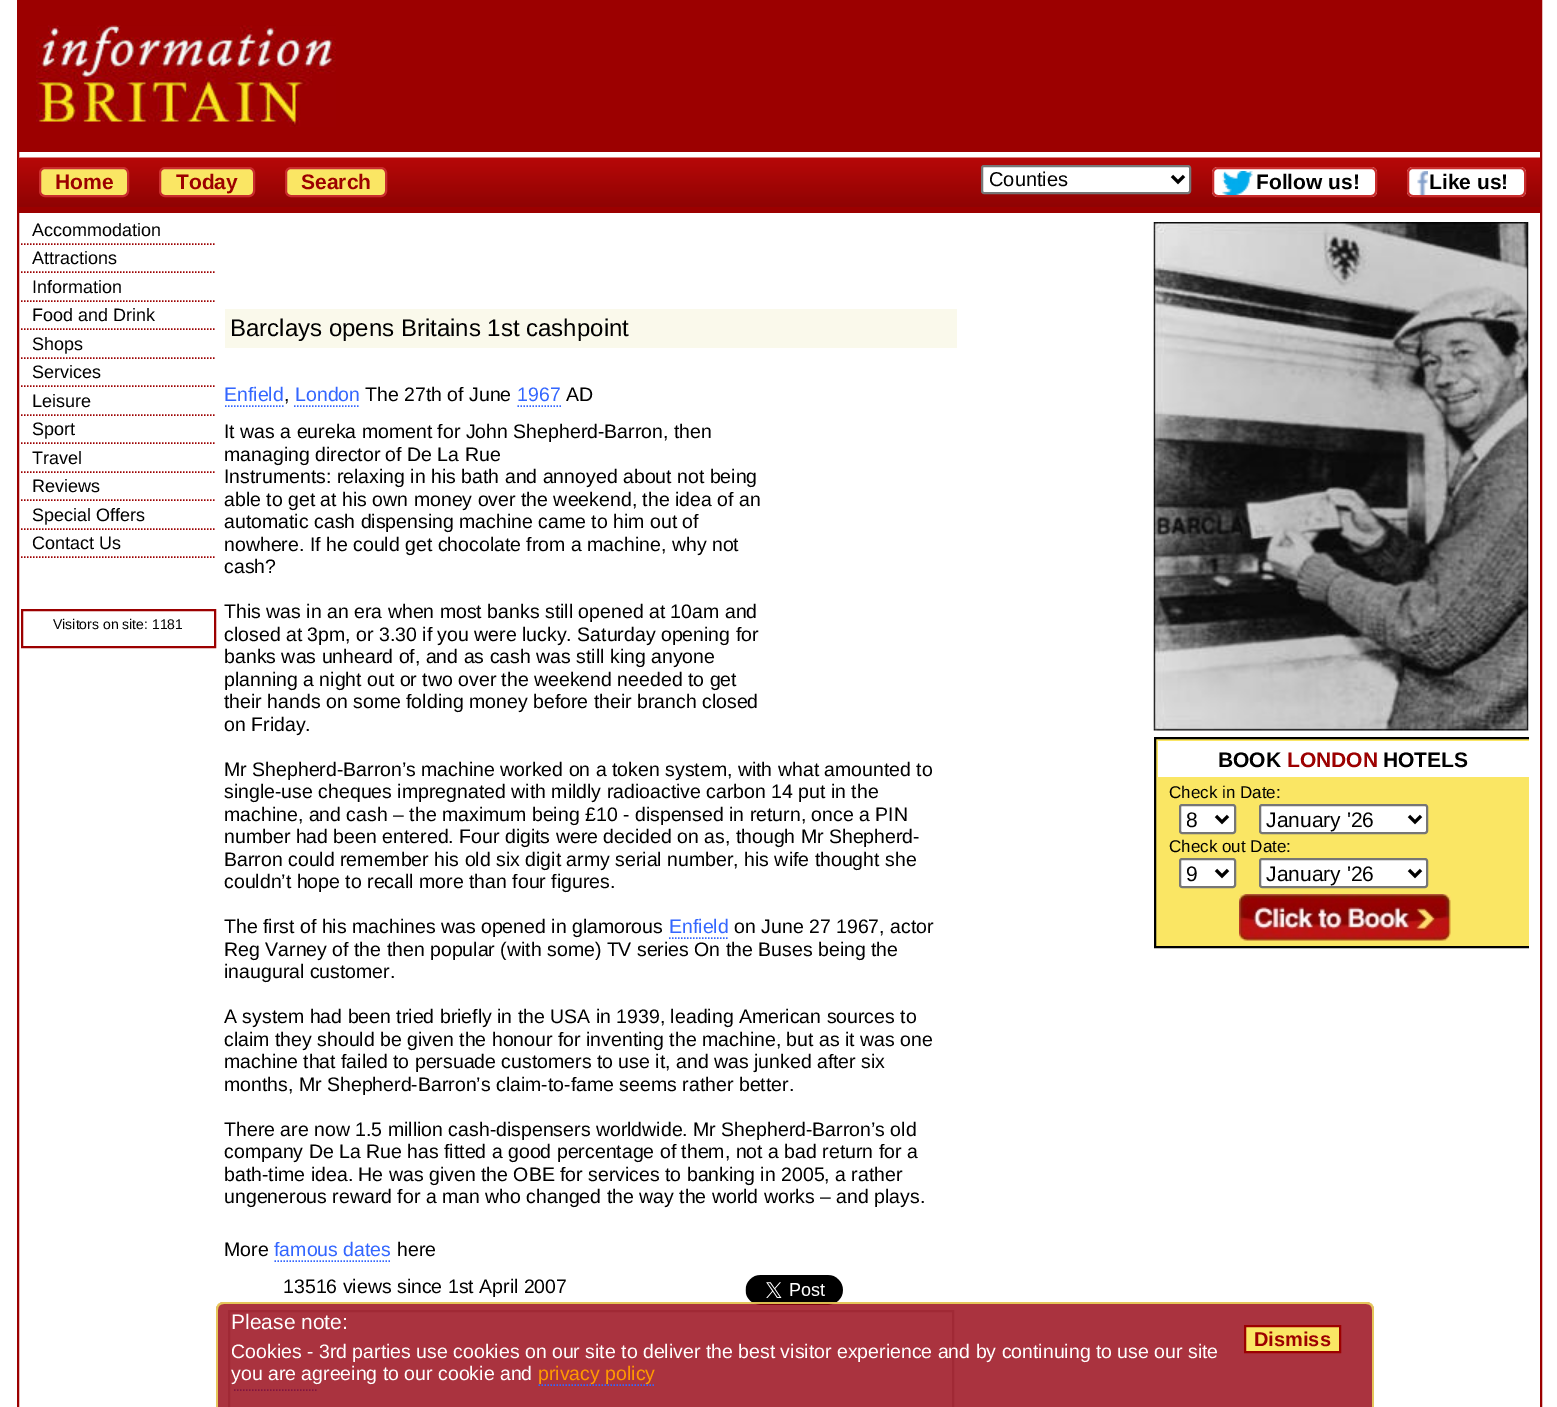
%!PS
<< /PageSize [1557 1407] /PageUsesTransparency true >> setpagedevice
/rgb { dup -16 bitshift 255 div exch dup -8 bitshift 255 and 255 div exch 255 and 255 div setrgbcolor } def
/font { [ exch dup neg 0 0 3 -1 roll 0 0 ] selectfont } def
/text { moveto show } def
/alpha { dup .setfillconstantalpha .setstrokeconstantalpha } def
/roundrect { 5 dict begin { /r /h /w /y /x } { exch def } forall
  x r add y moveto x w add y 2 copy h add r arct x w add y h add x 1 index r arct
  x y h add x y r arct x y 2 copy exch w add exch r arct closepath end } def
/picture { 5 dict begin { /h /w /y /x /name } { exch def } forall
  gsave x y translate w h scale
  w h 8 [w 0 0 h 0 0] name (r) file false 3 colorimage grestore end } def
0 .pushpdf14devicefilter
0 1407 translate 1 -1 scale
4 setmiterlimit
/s1 { /LiberationSans-Bold 21 font 16#9C0000 rgb } def
/s2 { /LiberationSans-Regular 20 font 16#000000 rgb } def
/s3 { /LiberationSans-Bold 21 font 16#000000 rgb } def
/s4 { /LiberationSans-Regular 18 font 16#000000 rgb } def
/s5 { /LiberationSans-Regular 14 font 16#000000 rgb } def
/s6 { /LiberationSans-Regular 24 font 16#000000 rgb } def
/s7 { /LiberationSans-Regular 19.5 font 16#3366FF rgb } def
/s8 { /LiberationSans-Regular 19.5 font 16#000000 rgb } def
/s9 { /LiberationSans-Regular 17 font 16#000000 rgb } def
/s10 { /LiberationSans-Regular 21 font 16#000000 rgb } def
/s11 { /LiberationSans-Regular 21 font 16#FFFFFF rgb } def
/s12 { /LiberationSans-Bold 20 font 16#9C0000 rgb } def
/s13 { /LiberationSans-Regular 19.5 font 16#FFFFFF rgb } def
/s14 { /LiberationSans-Regular 19.5 font 16#FF9900 rgb } def
16#FFFFFF rgb
0 0 1557 1407 rectfill
16#9C0000 rgb
2 setlinewidth
18 1 1523 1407 rectstroke
19 2 1521 150 rectfill
(pic1.raw) 36 25 300 102 picture
19 158 1521 55 rectfill
(pic2.raw) 18 157 1523 50 picture
16#FAE664 rgb
40 168 88 28 5 roundrect gsave fill grestore
16#C92D2D rgb
stroke
s1
(Home) 55 189 text
16#FAE664 rgb
160 168 94 28 5 roundrect gsave fill grestore
16#C92D2D rgb
stroke
s1
(Today) 176 189 text
16#FAE664 rgb
286 168 100 28 5 roundrect gsave fill grestore
16#C92D2D rgb
stroke
s1
(Search) 301 189 text
16#FFFFFF rgb
982 166 208 27 2 roundrect gsave fill grestore
16#767676 rgb
stroke
16#000000 rgb
3 setlinewidth
1172 176 moveto 1178 182 lineto 1184 176 lineto stroke
s2
(Counties) 989 186 text
16#FFFFFF rgb
1212 167 165 30 6 roundrect fill
(pic3.raw) 1222 171 31 24 picture
16#C92D2D rgb
2 setlinewidth
1213 168 163 28 5 roundrect stroke
s3
(Follow us!) 1256 189 text
16#FFFFFF rgb
1407 167 119 30 6 roundrect fill
(pic4.raw) 1417 171 11 24 picture
16#C92D2D rgb
1408 168 117 28 5 roundrect stroke
s3
(Like us!) 1429 189 text
16#9C0000 rgb
1.5 setlinewidth
[1.5 1.5] 0 setdash
21 244 moveto 216 244 lineto stroke
s4
(Accommodation) 32 236 text
16#9C0000 rgb
21 272 moveto 216 272 lineto stroke
s4
(Attractions) 32 264 text
16#9C0000 rgb
21 301 moveto 216 301 lineto stroke
s4
(Information) 32 293 text
16#9C0000 rgb
21 329 moveto 216 329 lineto stroke
s4
(Food and Drink) 32 321 text
16#9C0000 rgb
21 358 moveto 216 358 lineto stroke
s4
(Shops) 32 350 text
16#9C0000 rgb
21 386 moveto 216 386 lineto stroke
s4
(Services) 32 378 text
16#9C0000 rgb
21 415 moveto 216 415 lineto stroke
s4
(Leisure) 32 407 text
16#9C0000 rgb
21 443 moveto 216 443 lineto stroke
s4
(Sport) 32 435 text
16#9C0000 rgb
21 472 moveto 216 472 lineto stroke
s4
(Travel) 32 464 text
16#9C0000 rgb
21 500 moveto 216 500 lineto stroke
s4
(Reviews) 32 492 text
16#9C0000 rgb
21 529 moveto 216 529 lineto stroke
s4
(Special Offers) 32 521 text
16#9C0000 rgb
21 557 moveto 216 557 lineto stroke
s4
(Contact Us) 32 549 text
16#9C0000 rgb
2 setlinewidth
[] 0 setdash
22 610 193 37 rectstroke
s5
(Visitors on site: 1181) 53 629 text
16#FAF9EB rgb
225 309 732 39 rectfill
s6
(Barclays opens Britains 1st cashpoint) 230 336 text
s7
(Enfield) 224 401 text
1.5 setlinewidth
[1.5 1.5] 0 setdash
225 406 moveto 283.5 406 lineto stroke
s8
(,) 284 401 text
s7
(London) 295 401 text
294 406 moveto 360 406 lineto stroke
s8
(The 27th of June) 365 401 text
s7
(1967) 517 401 text
517.5 406 moveto 561 406 lineto stroke
s8
(AD) 566 401 text
(It was a eureka moment for John Shepherd-Barron, then) 224 438 text
(managing director of De La Rue) 224 461 text
(Instruments: relaxing in his bath and annoyed about not being) 224 483 text
(able to get at his own money over the weekend, the idea of an) 224 506 text
(automatic cash dispensing machine came to him out of) 224 528 text
(nowhere. If he could get chocolate from a machine, why not) 224 551 text
(cash?) 224 573 text
(This was in an era when most banks still opened at 10am and) 224 618 text
(closed at 3pm, or 3.30 if you were lucky. Saturday opening for) 224 641 text
(banks was unheard of, and as cash was still king anyone) 224 663 text
(planning a night out or two over the weekend needed to get) 224 686 text
(their hands on some folding money before their branch closed) 224 708 text
(on Friday.) 224 731 text
(Mr Shepherd-Barron’s machine worked on a token system, with what amounted to) 224 776 text
(single-use cheques impregnated with mildly radioactive carbon 14 put in the) 224 798 text
(machine, and cash – the maximum being £10 - dispensed in return, once a PIN) 224 821 text
(number had been entered. Four digits were decided on as, though Mr Shepherd-) 224 843 text
(Barron could remember his old six digit army serial number, his wife thought she) 224 866 text
(couldn’t hope to recall more than four figures.) 224 888 text
(The first of his machines was opened in glamorous) 224 933 text
s7
(Enfield) 669 933 text
669 938 moveto 729 938 lineto stroke
s8
(on June 27 1967, actor) 734 933 text
(Reg Varney of the then popular \(with some\) TV series On the Buses being the) 224 956 text
(inaugural customer.) 224 978 text
(A system had been tried briefly in the USA in 1939, leading American sources to) 224 1023 text
(claim they should be given the honour for inventing the machine, but as it was one) 224 1046 text
(machine that failed to persuade customers to use it, and was junked after six) 224 1068 text
(months, Mr Shepherd-Barron’s claim-to-fame seems rather better.) 224 1091 text
(There are now 1.5 million cash-dispensers worldwide. Mr Shepherd-Barron’s old) 224 1136 text
(company De La Rue has fitted a good percentage of them, not a bad return for a) 224 1158 text
(bath-time idea. He was given the OBE for services to banking in 2005, a rather) 224 1181 text
(ungenerous reward for a man who changed the way the world works – and plays.) 224 1203 text
(More) 224 1256 text
s7
(famous dates) 274 1256 text
274.5 1261 moveto 391.5 1261 lineto stroke
s8
(here) 397 1256 text
(13516 views since 1st April 2007) 283 1293 text
(pic5.raw) 745 1275 98 30 picture
16#CCCCCC rgb
2 setlinewidth
[] 0 setdash
229 1311 724 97 rectstroke
16#3366FF rgb
1.5 setlinewidth
[1.5 1.5] 0 setdash
234 1390 moveto 318 1390 lineto stroke
(pic6.raw) 1153 222 376 509 picture
16#FAE664 rgb
1156 739 373 207 rectfill
gsave
1154 216 375 1107 rectclip
16#000000 rgb
2 setlinewidth
[] 0 setdash
1155 738 379 209 rectstroke
grestore
16#FFFFFF rgb
1158 741 371 36 rectfill
s3
(BOOK) 1218 767 text
s1
(LONDON) 1287 767 text
s3
(HOTELS) 1383 767 text
s9
(Check in Date:) 1169 798 text
16#FFFFFF rgb
1180 805 55 28 2 roundrect gsave fill grestore
16#767676 rgb
2 setlinewidth
[] 0 setdash
stroke
16#000000 rgb
3 setlinewidth
1216 816 moveto 1222 822 lineto 1228 816 lineto stroke
gsave
1187 806 24 27 rectclip
s10
(8) 1186 827 text
grestore
16#FFFFFF rgb
1260 805 167 28 2 roundrect gsave fill grestore
16#767676 rgb
2 setlinewidth
stroke
16#000000 rgb
3 setlinewidth
1409 816 moveto 1415 822 lineto 1421 816 lineto stroke
s10
(January '26) 1266 827 text
s9
(Check out Date:) 1169 852 text
16#FFFFFF rgb
1180 859 55 28 2 roundrect gsave fill grestore
16#767676 rgb
2 setlinewidth
stroke
16#000000 rgb
3 setlinewidth
1216 870 moveto 1222 876 lineto 1228 870 lineto stroke
gsave
1187 860 24 27 rectclip
s10
(9) 1186 881 text
grestore
16#FFFFFF rgb
1260 859 167 28 2 roundrect gsave fill grestore
16#767676 rgb
2 setlinewidth
stroke
16#000000 rgb
3 setlinewidth
1409 870 moveto 1415 876 lineto 1421 870 lineto stroke
s10
(January '26) 1266 881 text
(pic7.raw) 1239 894 212 47 picture
0.8 alpha
16#95000F rgb
224 1302 moveto 1366 1302 lineto 1370.5 1302 1374 1305.5 1374 1310 curveto 1374 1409 lineto 216 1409 lineto 216 1310 lineto 216 1305.5 219.5 1302 224 1302 curveto closepath fill
16#F4EB61 rgb
224 1302 moveto 1366 1302 lineto 1371 1302 1374 1305 1374 1310 curveto 1374 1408 lineto 216 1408 lineto 216 1310 lineto 216 1305 219 1302 224 1302 curveto closepath 224 1304 moveto 1366 1304 lineto 1370 1304 1372 1306 1372 1310 curveto 1372 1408 lineto 218 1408 lineto 218 1310 lineto 218 1306 220 1304 224 1304 curveto closepath eofill
1 alpha
s11
(Please note:) 231 1329 text
16#FAE664 rgb
1245 1326 moveto 1340 1326 lineto 1340 1352 lineto 1245 1352 lineto closepath gsave fill grestore
16#9C0000 rgb
2 setlinewidth
stroke
s12
(Dismiss) 1254 1346 text
s13
(Cookies - 3rd parties use cookies on our site to deliver the best visitor experience and by continuing to use our site) 231 1358 text
(you are agreeing to our cookie and) 231 1380 text
16#3366FF rgb
1.5 setlinewidth
[1.5 1.5] 0 setdash
538.5 1385 moveto 655.5 1385 lineto stroke
s14
(privacy policy) 538 1380 text
.poppdf14devicefilter showpage
